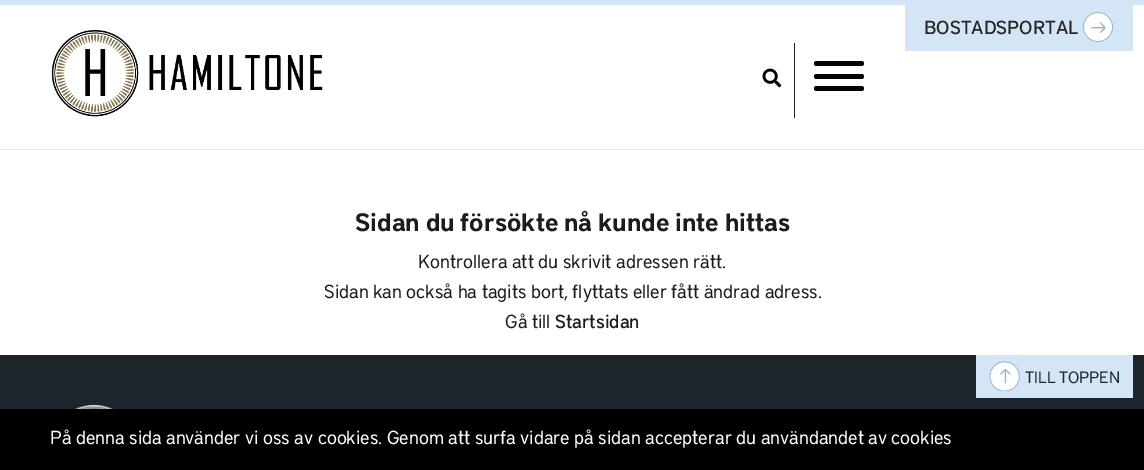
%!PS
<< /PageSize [1144 470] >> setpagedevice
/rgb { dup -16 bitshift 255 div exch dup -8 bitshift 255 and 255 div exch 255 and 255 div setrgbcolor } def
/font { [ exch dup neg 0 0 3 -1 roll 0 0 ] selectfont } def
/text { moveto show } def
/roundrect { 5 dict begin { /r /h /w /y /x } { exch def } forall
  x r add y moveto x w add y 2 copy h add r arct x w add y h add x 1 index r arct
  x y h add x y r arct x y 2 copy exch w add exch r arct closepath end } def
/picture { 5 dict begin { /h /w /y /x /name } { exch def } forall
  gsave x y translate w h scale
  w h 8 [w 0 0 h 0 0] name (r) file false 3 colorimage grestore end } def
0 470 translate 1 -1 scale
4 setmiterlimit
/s1 { /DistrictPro-Medium 18.75 font 16#252525 rgb } def
/s2 { /DistrictPro-SemiBold 25 font 16#1C1C1C rgb } def
/s3 { /DistrictPro-Regular 18.75 font 16#1C1C1C rgb } def
/s4 { /DistrictPro-Medium 18.75 font 16#1C1C1C rgb } def
/s5 { /DistrictPro-Regular 16.25 font 16#1C252C rgb } def
/s6 { /DistrictPro-Regular 18.75 font 16#FFFFFF rgb } def
16#FFFFFF rgb
0 0 1144 470 rectfill
16#D4E5F6 rgb
0 0 1144 5 rectfill
16#E9E9E9 rgb
0 149 1144 1 rectfill
16#D4E5F6 rgb
905 5 228 46 rectfill
s1
(BOSTADSPORTAL) 924 34 text
(pic1.raw) 1083 12 30 30 picture
(pic2.raw) 51 30 272 87 picture
(pic3.raw) 762 68 20 20 picture
16#1C1C1C rgb
794 43 1 75 rectfill
16#000000 rgb
814 61 50 5 2.5 roundrect fill
814 74 50 5 2.5 roundrect fill
814 86 50 5 2.5 roundrect fill
s2
(Sidan du försökte nå kunde inte hittas) 355 231 text
s3
(Kontrollera att du skrivit adressen rätt.) 418 268 text
(Sidan kan också ha tagits bort, flyttats eller fått ändrad adress.) 324 298 text
(Gå till) 505 328 text
s4
(Startsidan) 555 328 text
16#1C252C rgb
0 355 1144 54 rectfill
16#D4E5F6 rgb
976 355 157 43 rectfill
(pic4.raw) 989 361 31 31 picture
s5
(TILL TOPPEN) 1025 383 text
(pic5.raw) 74 405 40 4 picture
16#000000 rgb
0 409 1144 61 rectfill
s6
(På denna sida använder vi oss av cookies. Genom att surfa vidare på sidan accepterar du användandet av cookies) 50 444 text
showpage
